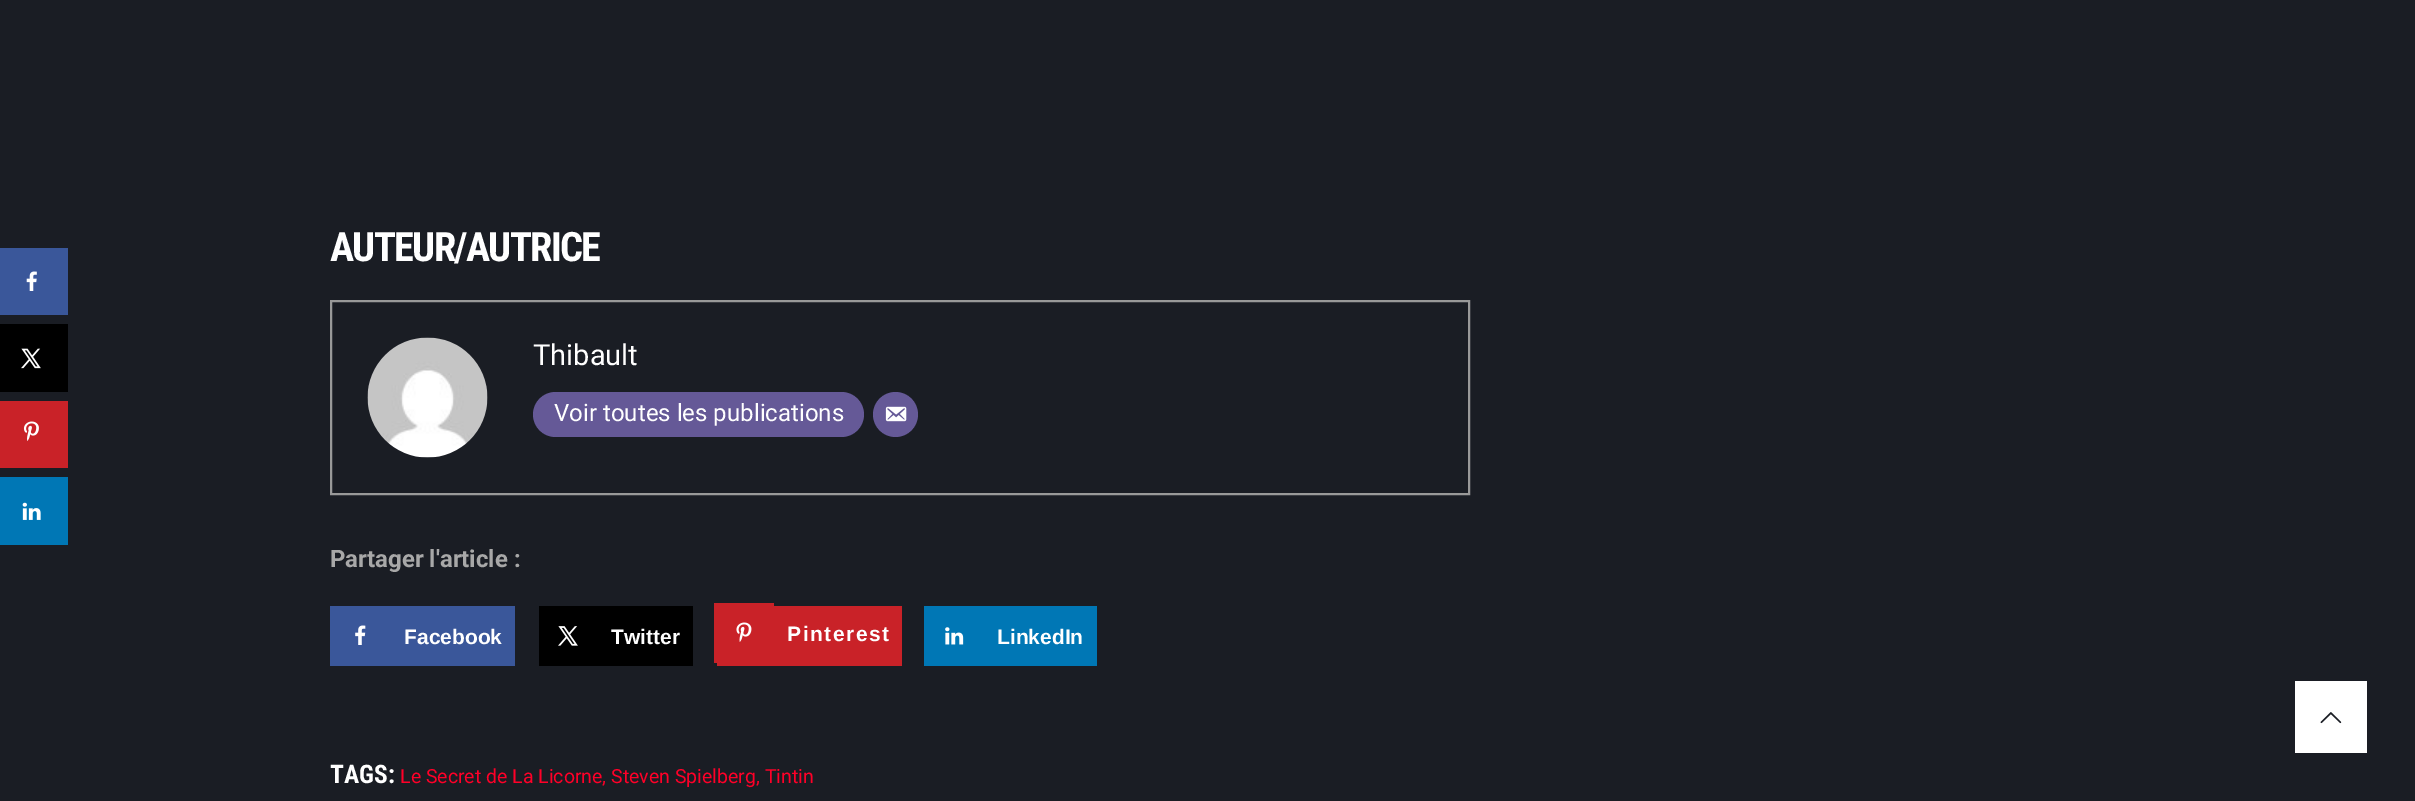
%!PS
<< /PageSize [2415 801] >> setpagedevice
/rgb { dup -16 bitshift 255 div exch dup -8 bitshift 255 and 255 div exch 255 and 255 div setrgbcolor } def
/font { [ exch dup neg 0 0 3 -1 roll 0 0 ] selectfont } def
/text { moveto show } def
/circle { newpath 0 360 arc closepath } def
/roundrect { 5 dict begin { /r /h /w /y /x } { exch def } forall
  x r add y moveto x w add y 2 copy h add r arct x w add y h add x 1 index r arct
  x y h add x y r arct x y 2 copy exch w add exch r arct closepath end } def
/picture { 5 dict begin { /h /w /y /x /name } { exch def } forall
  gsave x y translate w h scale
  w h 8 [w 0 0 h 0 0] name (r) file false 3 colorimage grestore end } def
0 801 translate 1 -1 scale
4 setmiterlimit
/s1 { /Roboto-Regular 29 font 16#FFFFFF rgb } def
/s2 { /Roboto-Regular 24 font 16#FFFFFF rgb } def
/s3 { /Roboto-Bold 24 font 16#A8A8A8 rgb } def
/s4 { /LiberationSans-Bold 21 font 16#FFFFFF rgb } def
/s5 { /RobotoCondensed-Bold 25.5 font 16#FFFFFF rgb } def
/s6 { /Roboto-Regular 19.5 font 16#FF0028 rgb } def
16#1A1D24 rgb
0 0 2415 801 rectfill
16#3A579A rgb
0 248 68 67 rectfill
(pic1.raw) 26 271 11 20 picture
16#000000 rgb
0 324 68 68 rectfill
(pic2.raw) 21 348 20 21 picture
16#C92228 rgb
0 401 68 67 rectfill
(pic3.raw) 23 421 16 20 picture
16#0077B5 rgb
0 477 68 68 rectfill
(pic4.raw) 22 502 19 18 picture
/RobotoCondensed-Bold 40.5 font
16#FFFFFF rgb
330 261 moveto -1.75 0 (AUTEUR/AUTRICE) ashow
16#999999 rgb
2 setlinewidth
331 301 1138 193 rectstroke
(pic5.raw) 367 337 121 121 picture
s1
(Thibault) 533 365 text
16#655997 rgb
533 392 331 45 22.5 roundrect fill
s2
(Voir toutes les publications) 554 421 text
16#655997 rgb
895.5 414.5 22.5 circle fill
(pic6.raw) 885 406 22 16 picture
s3
(Partager l'article :) 330 567 text
16#3A579A rgb
330 606 185 60 rectfill
(pic7.raw) 355 625 11 20 picture
s4
(Facebook) 404 644 text
16#000000 rgb
539 606 154 60 rectfill
(pic8.raw) 558 626 20 20 picture
s4
(Twitter) 611 644 text
16#C92228 rgb
717 606 185 60 rectfill
714 603 60 60 rectfill
(pic9.raw) 736 622 16 20 picture
16#FFFFFF rgb
787 641 moveto 1.5 0 (Pinterest) ashow
16#0077B5 rgb
924 606 173 60 rectfill
(pic10.raw) 945 627 19 18 picture
s4
(LinkedIn) 997 644 text
s5
(TAGS:) 330 783 text
s6
(Le Secret de La Licorne, Steven Spielberg, Tintin) 400 783 text
16#FFFFFF rgb
2295 681 72 72 rectfill
(pic11.raw) 2320 712 22 12 picture
showpage
